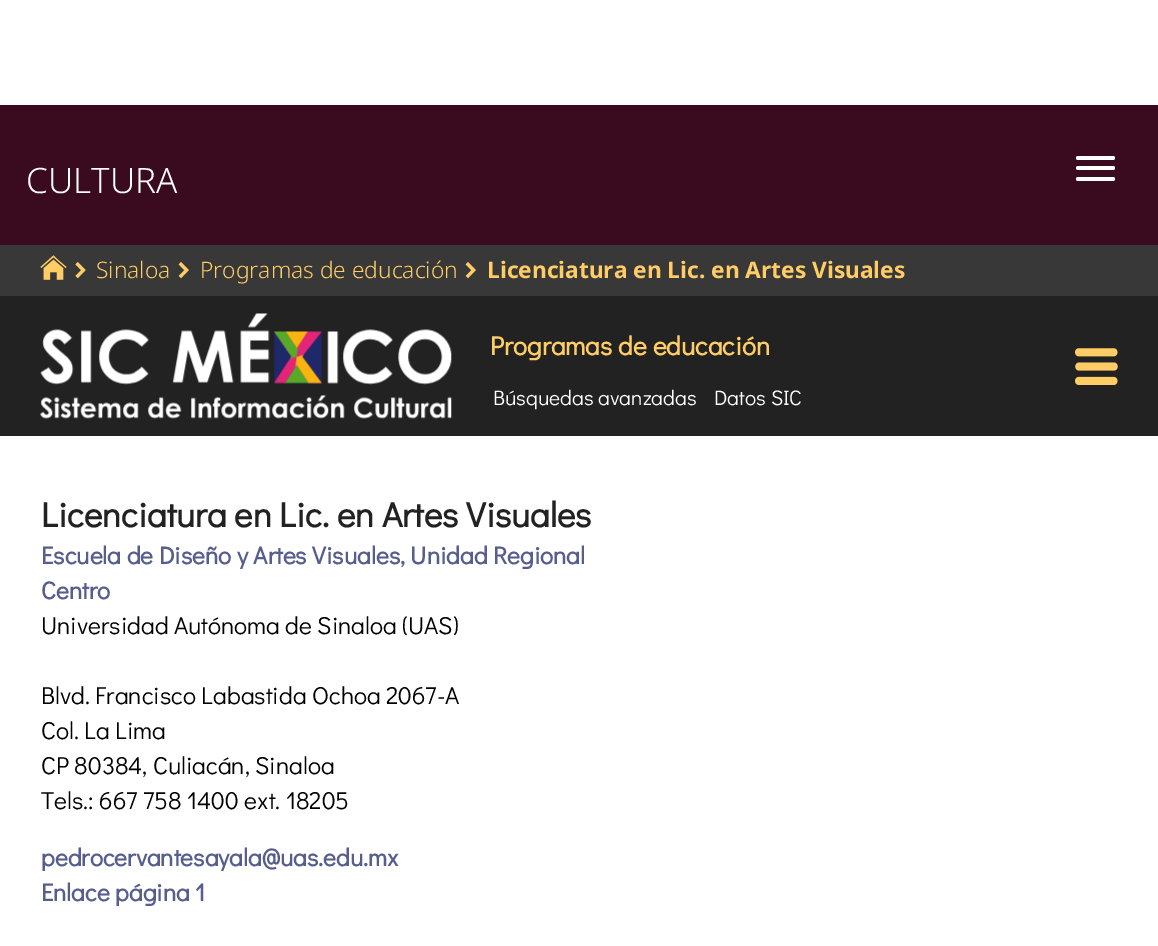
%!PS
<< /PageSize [1158 946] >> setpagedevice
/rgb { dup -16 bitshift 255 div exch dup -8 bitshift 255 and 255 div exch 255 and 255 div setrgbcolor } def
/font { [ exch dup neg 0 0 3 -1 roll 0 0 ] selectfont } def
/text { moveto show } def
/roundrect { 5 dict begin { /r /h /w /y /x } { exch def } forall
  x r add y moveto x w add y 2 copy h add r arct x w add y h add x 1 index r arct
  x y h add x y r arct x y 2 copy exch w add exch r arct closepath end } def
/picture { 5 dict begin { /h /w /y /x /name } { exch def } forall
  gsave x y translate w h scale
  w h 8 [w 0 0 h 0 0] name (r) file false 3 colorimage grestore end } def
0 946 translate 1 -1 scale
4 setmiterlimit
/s1 { /NotoSans-Light 35 font 16#FFFFFF rgb } def
/s2 { /NotoSans-Light 22.75 font 16#FFCC66 rgb } def
/s3 { /NotoSans-Bold 22.75 font 16#FFCC66 rgb } def
/s4 { /DidactGothic-Bold 26.25 font 16#FFCC66 rgb } def
/s5 { /DidactGothic-Regular 21 font 16#FFFFFF rgb } def
/s6 { /DidactGothic-Bold 35 font 16#212221 rgb } def
/s7 { /DidactGothic-Bold 24.5 font 16#575E8E rgb } def
/s8 { /DidactGothic-Regular 24.5 font 16#000000 rgb } def
16#FFFFFF rgb
0 0 1158 946 rectfill
16#3A0B1F rgb
0 105 1158 140 rectfill
s1
(CULTURA) 26 193 text
1076 156 39 4 2 roundrect fill
1076 166 39 4 2 roundrect fill
1076 177 39 4 2 roundrect fill
16#373837 rgb
0 245 1158 51 rectfill
(pic1.raw) 40 255 27 25 picture
(pic2.raw) 75 261 11 18 picture
s2
(Sinaloa) 96 278 text
(pic3.raw) 178 262 11 17 picture
(Programas de educación) 200 278 text
(pic3.raw) 465 262 11 17 picture
s3
(Licenciatura en Lic. en Artes Visuales) 487 278 text
16#212221 rgb
0 296 1158 140 rectfill
(pic4.raw) 40 313 412 106 picture
s4
(Programas de educación) 490 355 text
s5
(Búsquedas avanzadas) 493 405 text
(Datos SIC) 714 405 text
(pic5.raw) 1075 348 43 37 picture
s6
(Licenciatura en Lic. en Artes Visuales) 41 527 text
s7
(Escuela de Diseño y Artes Visuales, Unidad Regional) 41 564 text
(Centro) 41 599 text
s8
(Universidad Autónoma de Sinaloa \(UAS\)) 41 634 text
(Blvd. Francisco Labastida Ochoa 2067-A) 41 704 text
(Col. La Lima) 41 739 text
(CP 80384, Culiacán, Sinaloa) 41 774 text
(Tels.: 667 758 1400 ext. 18205) 41 809 text
s7
(pedrocervantesayala@uas.edu.mx) 41 866 text
(Enlace página 1) 41 901 text
showpage
